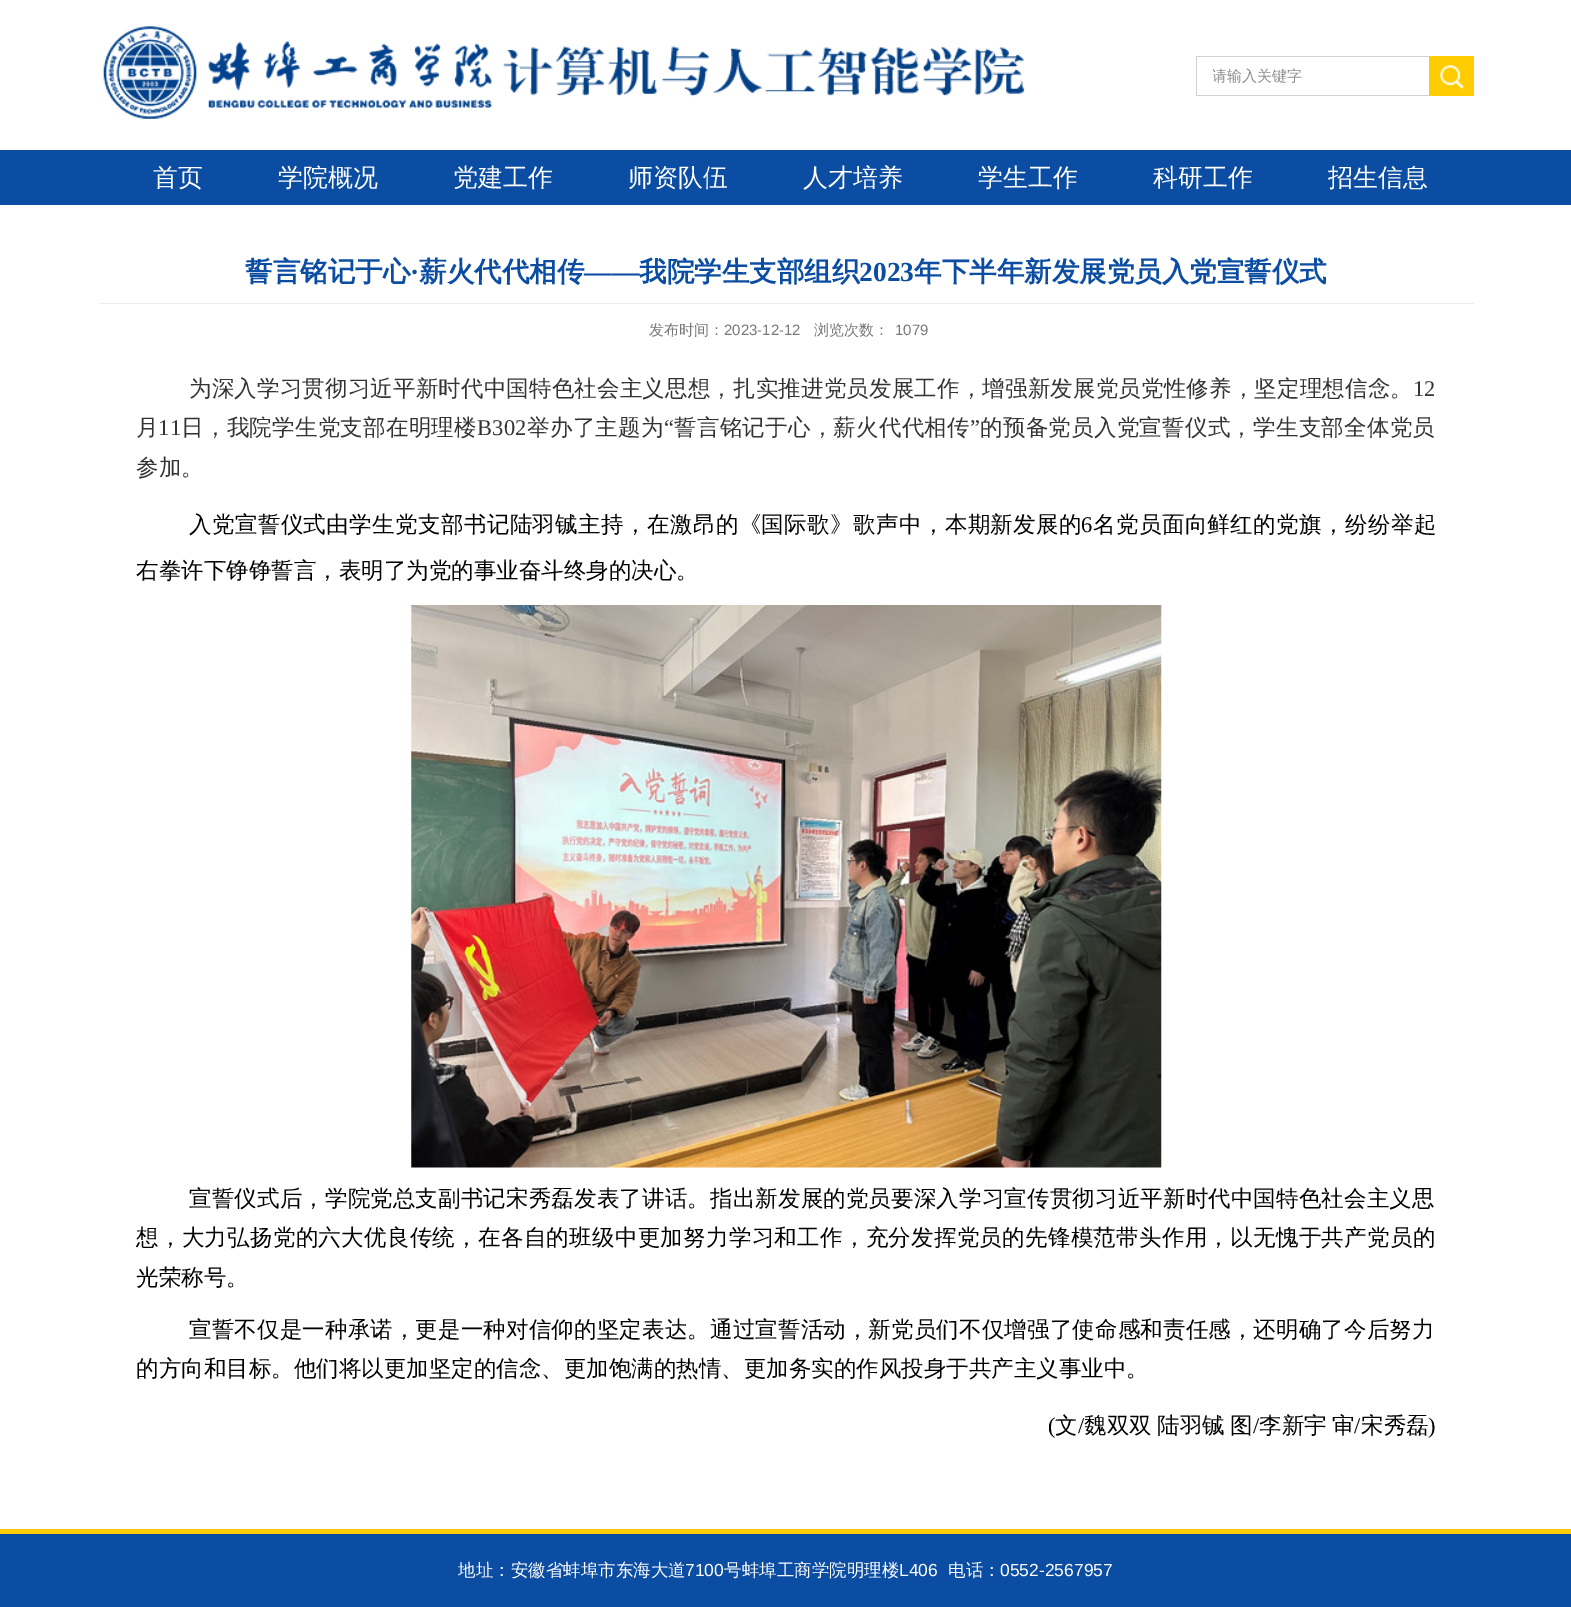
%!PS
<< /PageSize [1571 1607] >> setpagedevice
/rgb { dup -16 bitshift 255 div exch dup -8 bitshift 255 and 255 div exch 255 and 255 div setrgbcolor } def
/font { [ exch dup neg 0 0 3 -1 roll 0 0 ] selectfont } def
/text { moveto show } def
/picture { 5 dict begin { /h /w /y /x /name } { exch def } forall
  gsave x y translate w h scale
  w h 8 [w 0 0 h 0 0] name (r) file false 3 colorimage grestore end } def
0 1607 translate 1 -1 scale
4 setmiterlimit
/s1 { /WenQuanYiZenHei-Medium 15 font 16#8D8D8D rgb } def
/s2 { /WenQuanYiZenHei-Medium 25 font 16#FFFFFF rgb } def
/s3 { /WenQuanYiZenHei-Bold 27.5 font 16#0B4DA2 rgb } def
/s4 { /LiberationSerif-Bold 27.5 font 16#0B4DA2 rgb } def
/s5 { /WenQuanYiZenHei-Medium 15 font 16#787878 rgb } def
/s6 { /LiberationSans-Regular 15 font 16#787878 rgb } def
/s7 { /LiberationSerif-Regular 22.5 font 16#333333 rgb } def
/s8 { /WenQuanYiZenHei-Medium 22.5 font 16#333333 rgb } def
/s9 { /WenQuanYiZenHei-Medium 22.5 font 16#000000 rgb } def
/s10 { /LiberationSerif-Regular 22.5 font 16#000000 rgb } def
/s11 { /WenQuanYiZenHei-Medium 17.5 font 16#FFFFFF rgb } def
/s12 { /LiberationSans-Regular 17.5 font 16#FFFFFF rgb } def
16#FFFFFF rgb
0 0 1571 1607 rectfill
(pic1.raw) 103 26 922 93 picture
16#D1D1D1 rgb
1196 56 233 1 rectfill
1196 95 233 1 rectfill
1196 56 1 40 rectfill
gsave
1213 63 216 27 rectclip
s1
(请输入关键字) 1212 81 text
grestore
16#FFCC00 rgb
1429 56 45 40 rectfill
(pic2.raw) 1439 64 25 25 picture
16#0B4DA2 rgb
0 150 1571 55 rectfill
s2
(首页) 153 186 text
(学院概况) 278 186 text
(党建工作) 453 186 text
(师资队伍) 628 186 text
(人才培养) 803 186 text
(学生工作) 978 186 text
(科研工作) 1153 186 text
(招生信息) 1328 186 text
s3
(誓言铭记于心) 245 281 text
s4
(·) 410 281 text
s3
(薪火代代相传) 419 281 text
s4
(——) 584 281 text
s3
(我院学生支部组织) 639 281 text
s4
(2023) 859 281 text
s3
(年下半年新发展党员入党宣誓仪式) 914 281 text
16#ECECEC rgb
99 303 1375 1 rectfill
s5
(发布时间：) 649 335 text
s6
(2023-12-12) 724 335 text
s5
(浏览次数：) 814 335 text
s6
(1079) 895 335 text
/WenQuanYiZenHei-Medium 22.5 font
16#333333 rgb
189 396 moveto 0.17 0 (为深入学习贯彻习近平新时代中国特色社会主义思想，扎实推进党员发展工作，增强新发展党员党性修养，坚定理想信念。) ashow
s7
(12) 1413 396 text
/WenQuanYiZenHei-Medium 22.5 font
136 435 moveto 0.25 0 (月) ashow
/LiberationSerif-Regular 22.5 font
158 435 moveto 0.25 0 (11) ashow
/WenQuanYiZenHei-Medium 22.5 font
181 435 moveto 0.25 0 (日，我院学生党支部在明理楼) ashow
/LiberationSerif-Regular 22.5 font
477 435 moveto 0.25 0 (B302) ashow
/WenQuanYiZenHei-Medium 22.5 font
527 435 moveto 0.25 0 (举办了主题为) ashow
/LiberationSerif-Regular 22.5 font
664 435 moveto 0.25 0 (“) ashow
/WenQuanYiZenHei-Medium 22.5 font
674 435 moveto 0.25 0 (誓言铭记于心，薪火代代相传) ashow
/LiberationSerif-Regular 22.5 font
970 435 moveto 0.25 0 (”) ashow
/WenQuanYiZenHei-Medium 22.5 font
980 435 moveto 0.25 0 (的预备党员入党宣誓仪式，学生支部全体党员) ashow
(参加。) 136 475 text
16#000000 rgb
189 532 moveto 0.4 0 (入党宣誓仪式由学生党支部书记陆羽铖主持，在激昂的《国际歌》歌声中，本期新发展的) ashow
/LiberationSerif-Regular 22.5 font
1081 532 moveto 0.4 0 (6) ashow
/WenQuanYiZenHei-Medium 22.5 font
1093 532 moveto 0.4 0 (名党员面向鲜红的党旗，纷纷举起) ashow
(右拳许下铮铮誓言，表明了为党的事业奋斗终身的决心。) 136 578 text
(pic3.raw) 411 605 751 563 picture
189 1206 moveto 0.15 0 (宣誓仪式后，学院党总支副书记宋秀磊发表了讲话。指出新发展的党员要深入学习宣传贯彻习近平新时代中国特色社会主义思) ashow
136 1245 moveto 0.3 0 (想，大力弘扬党的六大优良传统，在各自的班级中更加努力学习和工作，充分发挥党员的先锋模范带头作用，以无愧于共产党员的) ashow
(光荣称号。) 136 1285 text
189 1337 moveto 0.15 0 (宣誓不仅是一种承诺，更是一种对信仰的坚定表达。通过宣誓活动，新党员们不仅增强了使命感和责任感，还明确了今后努力) ashow
(的方向和目标。他们将以更加坚定的信念、更加饱满的热情、更加务实的作风投身于共产主义事业中。) 136 1376 text
s10
(\() 1048 1433 text
s9
(文) 1055 1433 text
s10
(/) 1078 1433 text
/WenQuanYiZenHei-Medium 22.5 font
1084 1433 moveto -1 0 32 (魏双双 陆羽铖 图) widthshow
s10
(/) 1253 1433 text
/WenQuanYiZenHei-Medium 22.5 font
1259 1433 moveto -1 0 32 (李新宇 审) widthshow
s10
(/) 1354 1433 text
s9
(宋秀磊) 1361 1433 text
s10
(\)) 1428 1433 text
16#0B4DA2 rgb
0 1534 1571 73 rectfill
16#FFCC00 rgb
0 1529 1571 5 rectfill
s11
(地址：安徽省蚌埠市东海大道) 458 1576 text
s12
(7100) 685 1576 text
s11
(号蚌埠工商学院明理楼) 724 1576 text
s12
(L406) 899 1576 text
s11
(电话：) 948 1576 text
s12
(0552-2567957) 1000 1576 text
showpage
